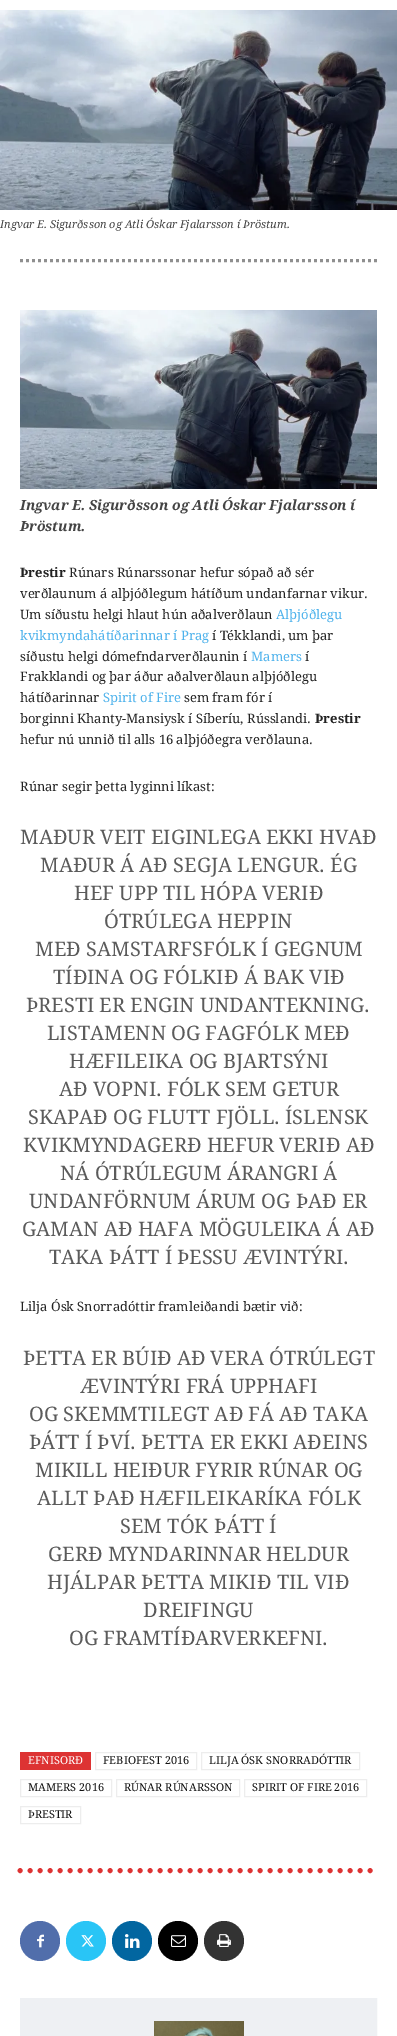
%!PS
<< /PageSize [397 2036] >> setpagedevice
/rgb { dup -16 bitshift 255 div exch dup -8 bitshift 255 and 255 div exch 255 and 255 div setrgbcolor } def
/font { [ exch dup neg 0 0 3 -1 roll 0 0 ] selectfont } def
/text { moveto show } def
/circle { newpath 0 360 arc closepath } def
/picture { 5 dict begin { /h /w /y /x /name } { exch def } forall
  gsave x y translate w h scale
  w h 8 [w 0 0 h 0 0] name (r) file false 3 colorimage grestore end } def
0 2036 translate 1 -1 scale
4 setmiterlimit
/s1 { /DroidSerif-Italic 11 font 16#444444 rgb } def
/s2 { /DroidSerif-BoldItalic 14 font 16#444444 rgb } def
/s3 { /DroidSerif-Bold 13 font 16#222222 rgb } def
/s4 { /DroidSerif-Regular 13 font 16#222222 rgb } def
/s5 { /DroidSerif-Regular 13 font 16#4DB2EC rgb } def
/s6 { /DroidSerif-Regular 20 font 16#5B5B5B rgb } def
/s7 { /DroidSerif-Regular 11 font 16#FFFFFF rgb } def
/s8 { /DroidSerif-Regular 11 font 16#111111 rgb } def
16#FFFFFF rgb
0 0 397 2036 rectfill
(pic1.raw) 0 10 397 200 picture
s1
(Ingvar E. Sigurðsson og Atli Óskar Fjalarsson í Þröstum.) 0 228 text
16#8F8F8F rgb
3 setlinewidth
[3 3] 0 setdash
20 260.5 moveto 377 260.5 lineto stroke
(pic2.raw) 20 310 357 179 picture
s2
(Ingvar E. Sigurðsson og Atli Óskar Fjalarsson í) 20 510 text
(Þröstum.) 20 531 text
s3
(Þrestir) 20 577 text
s4
(Rúnars Rúnarssonar hefur sópað að sér) 69 577 text
(verðlaunum á alþjóðlegum hátíðum undanfarnar vikur.) 20 598 text
(Um síðustu helgi hlaut hún aðalverðlaun) 20 619 text
s5
(Alþjóðlegu) 276 619 text
(kvikmyndahátíðarinnar í Prag) 20 640 text
s4
(í Tékklandi, um þar) 212 640 text
(síðustu helgi dómefndarverðlaunin í) 20 661 text
s5
(Mamers) 251 661 text
s4
(í) 305 661 text
(Frakklandi og þar áður aðalverðlaun alþjóðlegu) 20 681 text
(hátíðarinnar) 20 702 text
s5
(Spirit of Fire) 103 702 text
s4
(sem fram fór í) 184 702 text
(borginni Khanty-Mansiysk í Síberíu, Rússlandi.) 20 723 text
s3
(Þrestir) 315 723 text
s4
(hefur nú unnið til alls 16 alþjóðegra verðlauna.) 20 744 text
(Rúnar segir þetta lyginni líkast:) 20 791 text
s6
(MAÐUR VEIT EIGINLEGA EKKI HVAÐ) 20 844 text
(MAÐUR Á AÐ SEGJA LENGUR. ÉG) 40 872 text
(HEF UPP TIL HÓPA VERIÐ) 74 900 text
(ÓTRÚLEGA HEPPIN) 104 928 text
(MEÐ SAMSTARFSFÓLK Í GEGNUM) 35 956 text
(TÍÐINA OG FÓLKIÐ Á BAK VIÐ) 53 984 text
(ÞRESTI ER ENGIN UNDANTEKNING.) 26 1012 text
(LISTAMENN OG FAGFÓLK MEÐ) 47 1040 text
(HÆFILEIKA OG BJARTSÝNI) 69 1068 text
(AÐ VOPNI. FÓLK SEM GETUR) 59 1096 text
(SKAPAÐ OG FLUTT FJÖLL. ÍSLENSK) 28 1124 text
(KVIKMYNDAGERÐ HEFUR VERIÐ AÐ) 23 1152 text
(NÁ ÓTRÚLEGUM ÁRANGRI Á) 60 1180 text
(UNDANFÖRNUM ÁRUM OG ÞAÐ ER) 29 1208 text
(GAMAN AÐ HAFA MÖGULEIKA Á AÐ) 22 1236 text
(TAKA ÞÁTT Í ÞESSU ÆVINTÝRI.) 49 1264 text
s4
(Lilja Ósk Snorradóttir framleiðandi bætir við:) 20 1311 text
s6
(ÞETTA ER BÚIÐ AÐ VERA ÓTRÚLEGT) 23 1365 text
(ÆVINTÝRI FRÁ UPPHAFI) 80 1393 text
(OG SKEMMTILEGT AÐ FÁ AÐ TAKA) 29 1421 text
(ÞÁTT Í ÞVÍ. ÞETTA ER EKKI AÐEINS) 29 1449 text
(MIKILL HEIÐUR FYRIR RÚNAR OG) 35 1477 text
(ALLT ÞAÐ HÆFILEIKARÍKA FÓLK) 37 1505 text
(SEM TÓK ÞÁTT Í) 120 1533 text
(GERÐ MYNDARINNAR HELDUR) 48 1561 text
(HJÁLPAR ÞETTA MIKIÐ TIL VIÐ) 47 1589 text
(DREIFINGU) 143 1617 text
(OG FRAMTÍÐARVERKEFNI.) 69 1645 text
16#DD3333 rgb
20 1752 71 18 rectfill
s7
(EFNISORÐ) 28 1764 text
16#EDEDED rgb
1 setlinewidth
[] 0 setdash
95.5 1752.5 101 17 rectstroke
s8
(FEBIOFEST 2016) 103 1764 text
16#EDEDED rgb
201.5 1752.5 158 17 rectstroke
s8
(LILJA ÓSK SNORRADÓTTIR) 209 1764 text
16#EDEDED rgb
20.5 1779.5 91 17 rectstroke
s8
(MAMERS 2016) 28 1791 text
16#EDEDED rgb
116.5 1779.5 123 17 rectstroke
s8
(RÚNAR RÚNARSSON) 124 1791 text
16#EDEDED rgb
244.5 1779.5 122 17 rectstroke
s8
(SPIRIT OF FIRE 2016) 252 1791 text
16#EDEDED rgb
20.5 1806.5 60 17 rectstroke
s8
(ÞRESTIR) 28 1818 text
16#DD3333 rgb
5 setlinewidth
1 setlinecap
[0 10] 0 setdash
20 1870.5 moveto 377 1870.5 lineto stroke
16#516EAB rgb
40 1941 20 circle fill
(pic3.raw) 37 1934 7 14 picture
16#29C5F6 rgb
86 1941 20 circle fill
(pic4.raw) 81 1935 13 12 picture
16#0266A0 rgb
132 1941 20 circle fill
(pic5.raw) 125 1934 15 14 picture
16#000000 rgb
178 1941 20 circle fill
(pic6.raw) 171 1935 15 12 picture
16#333333 rgb
224 1941 20 circle fill
(pic7.raw) 217 1934 14 13 picture
16#EEF0F3 rgb
3 setlinewidth
0 setlinecap
[] 0 setdash
21.5 1999.5 354 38 rectstroke
23 2001 351 35 rectfill
(pic8.raw) 154 2021 90 15 picture
showpage
